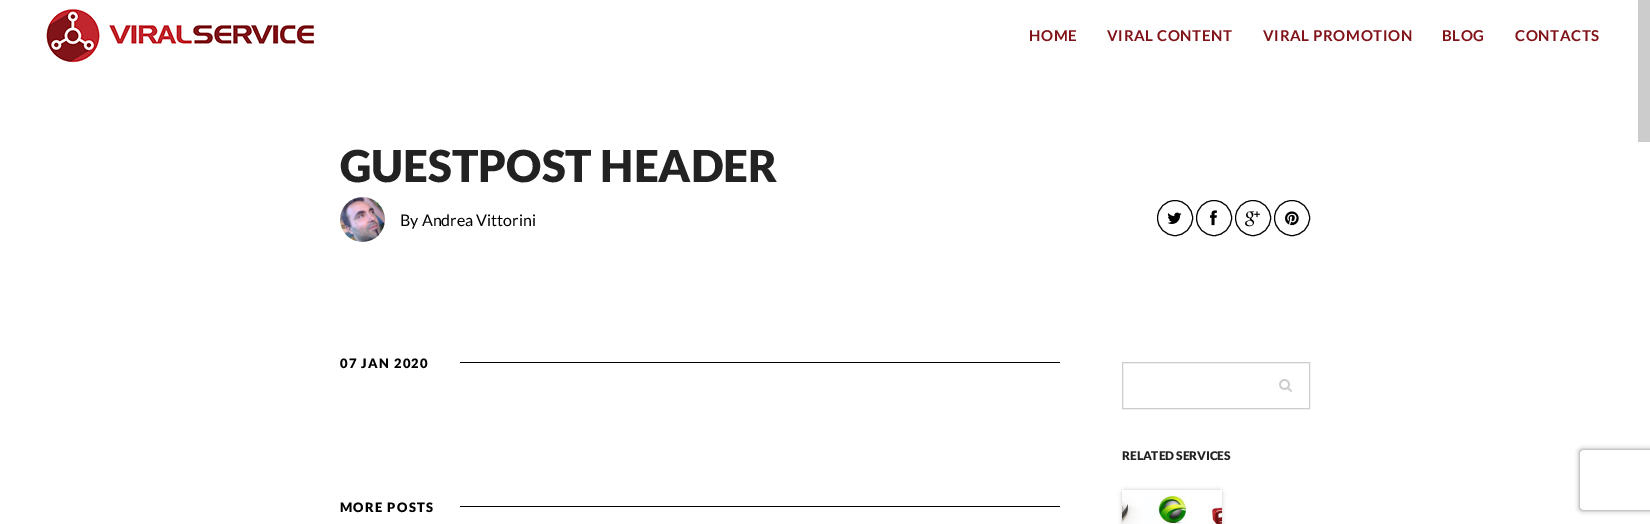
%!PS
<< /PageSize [1650 524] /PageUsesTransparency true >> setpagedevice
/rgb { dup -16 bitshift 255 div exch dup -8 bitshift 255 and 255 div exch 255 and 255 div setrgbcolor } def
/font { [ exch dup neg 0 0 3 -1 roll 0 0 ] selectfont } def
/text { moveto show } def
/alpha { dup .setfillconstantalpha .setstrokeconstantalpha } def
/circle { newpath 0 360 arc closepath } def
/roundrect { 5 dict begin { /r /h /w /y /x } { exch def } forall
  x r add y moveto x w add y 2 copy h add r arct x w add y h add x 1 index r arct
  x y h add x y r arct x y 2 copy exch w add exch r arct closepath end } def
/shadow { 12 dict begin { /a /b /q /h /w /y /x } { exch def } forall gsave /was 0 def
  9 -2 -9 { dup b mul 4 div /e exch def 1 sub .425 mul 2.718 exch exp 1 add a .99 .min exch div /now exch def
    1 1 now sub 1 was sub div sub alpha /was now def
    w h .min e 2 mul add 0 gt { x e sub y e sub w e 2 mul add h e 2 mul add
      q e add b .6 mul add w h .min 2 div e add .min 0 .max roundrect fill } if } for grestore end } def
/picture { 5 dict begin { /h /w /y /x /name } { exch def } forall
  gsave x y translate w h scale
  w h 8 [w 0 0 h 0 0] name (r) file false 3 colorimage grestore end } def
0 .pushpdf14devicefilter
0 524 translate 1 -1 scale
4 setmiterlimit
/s1 { /Lato-Black 44 font 16#222222 rgb } def
/s2 { /Lato-Regular 16 font 16#000000 rgb } def
16#FFFFFF rgb
0 0 1650 524 rectfill
(pic1.raw) 46 9 268 54 picture
/Lato-Bold 15 font
16#801318 rgb
1029 41 moveto 0.6 0 (HOME) ashow
1107 41 moveto 0.6 0 (VIRAL CONTENT) ashow
1263 41 moveto 0.6 0 (VIRAL PROMOTION) ashow
1442 41 moveto 0.6 0 (BLOG) ashow
1515 41 moveto 0.6 0 (CONTACTS) ashow
16#CCCCCC rgb
1638 0 12 142 rectfill
s1
(GUESTPOST HEADER) 340 182 text
(pic2.raw) 340 197 45 45 picture
s2
(By Andrea Vittorini) 400 226 text
1175 218 17.5 circle stroke
(pic3.raw) 1167 212 15 12 picture
1214 218 17.5 circle stroke
(pic4.raw) 1210 210 7 16 picture
1253 218 17.5 circle stroke
(pic5.raw) 1245 211 15 16 picture
1292 218 17.5 circle stroke
(pic6.raw) 1285 211 14 15 picture
/Lato-Black 13 font
340 368 moveto 1.25 0 (07 JAN 2020) ashow
460 362 600 1 rectfill
340 512 moveto 1.25 0 (MORE POSTS) ashow
460 506 600 1 rectfill
16#CCCCCC rgb
1122.5 362.5 187 46 rectstroke
(pic7.raw) 1279 379 13 13 picture
/Lato-Black 12 font
16#222222 rgb
1122 460 moveto -0.1 0 (RELATED SERVICES) ashow
16#000000 rgb
1122 490 100 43 3 2 0.2 shadow
(pic8.raw) 1122 490 100 34 picture
gsave
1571 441 moveto 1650 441 lineto 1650 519 lineto 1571 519 lineto closepath 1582 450 moveto 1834 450 lineto 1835 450 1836 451 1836 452 curveto 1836 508 lineto 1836 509 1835 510 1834 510 curveto 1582 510 lineto 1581 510 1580 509 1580 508 curveto 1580 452 lineto 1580 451 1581 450 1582 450 curveto closepath eoclip newpath
16#808080 rgb
1580 450 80 60 2 2.5 1 shadow
grestore
.poppdf14devicefilter showpage
